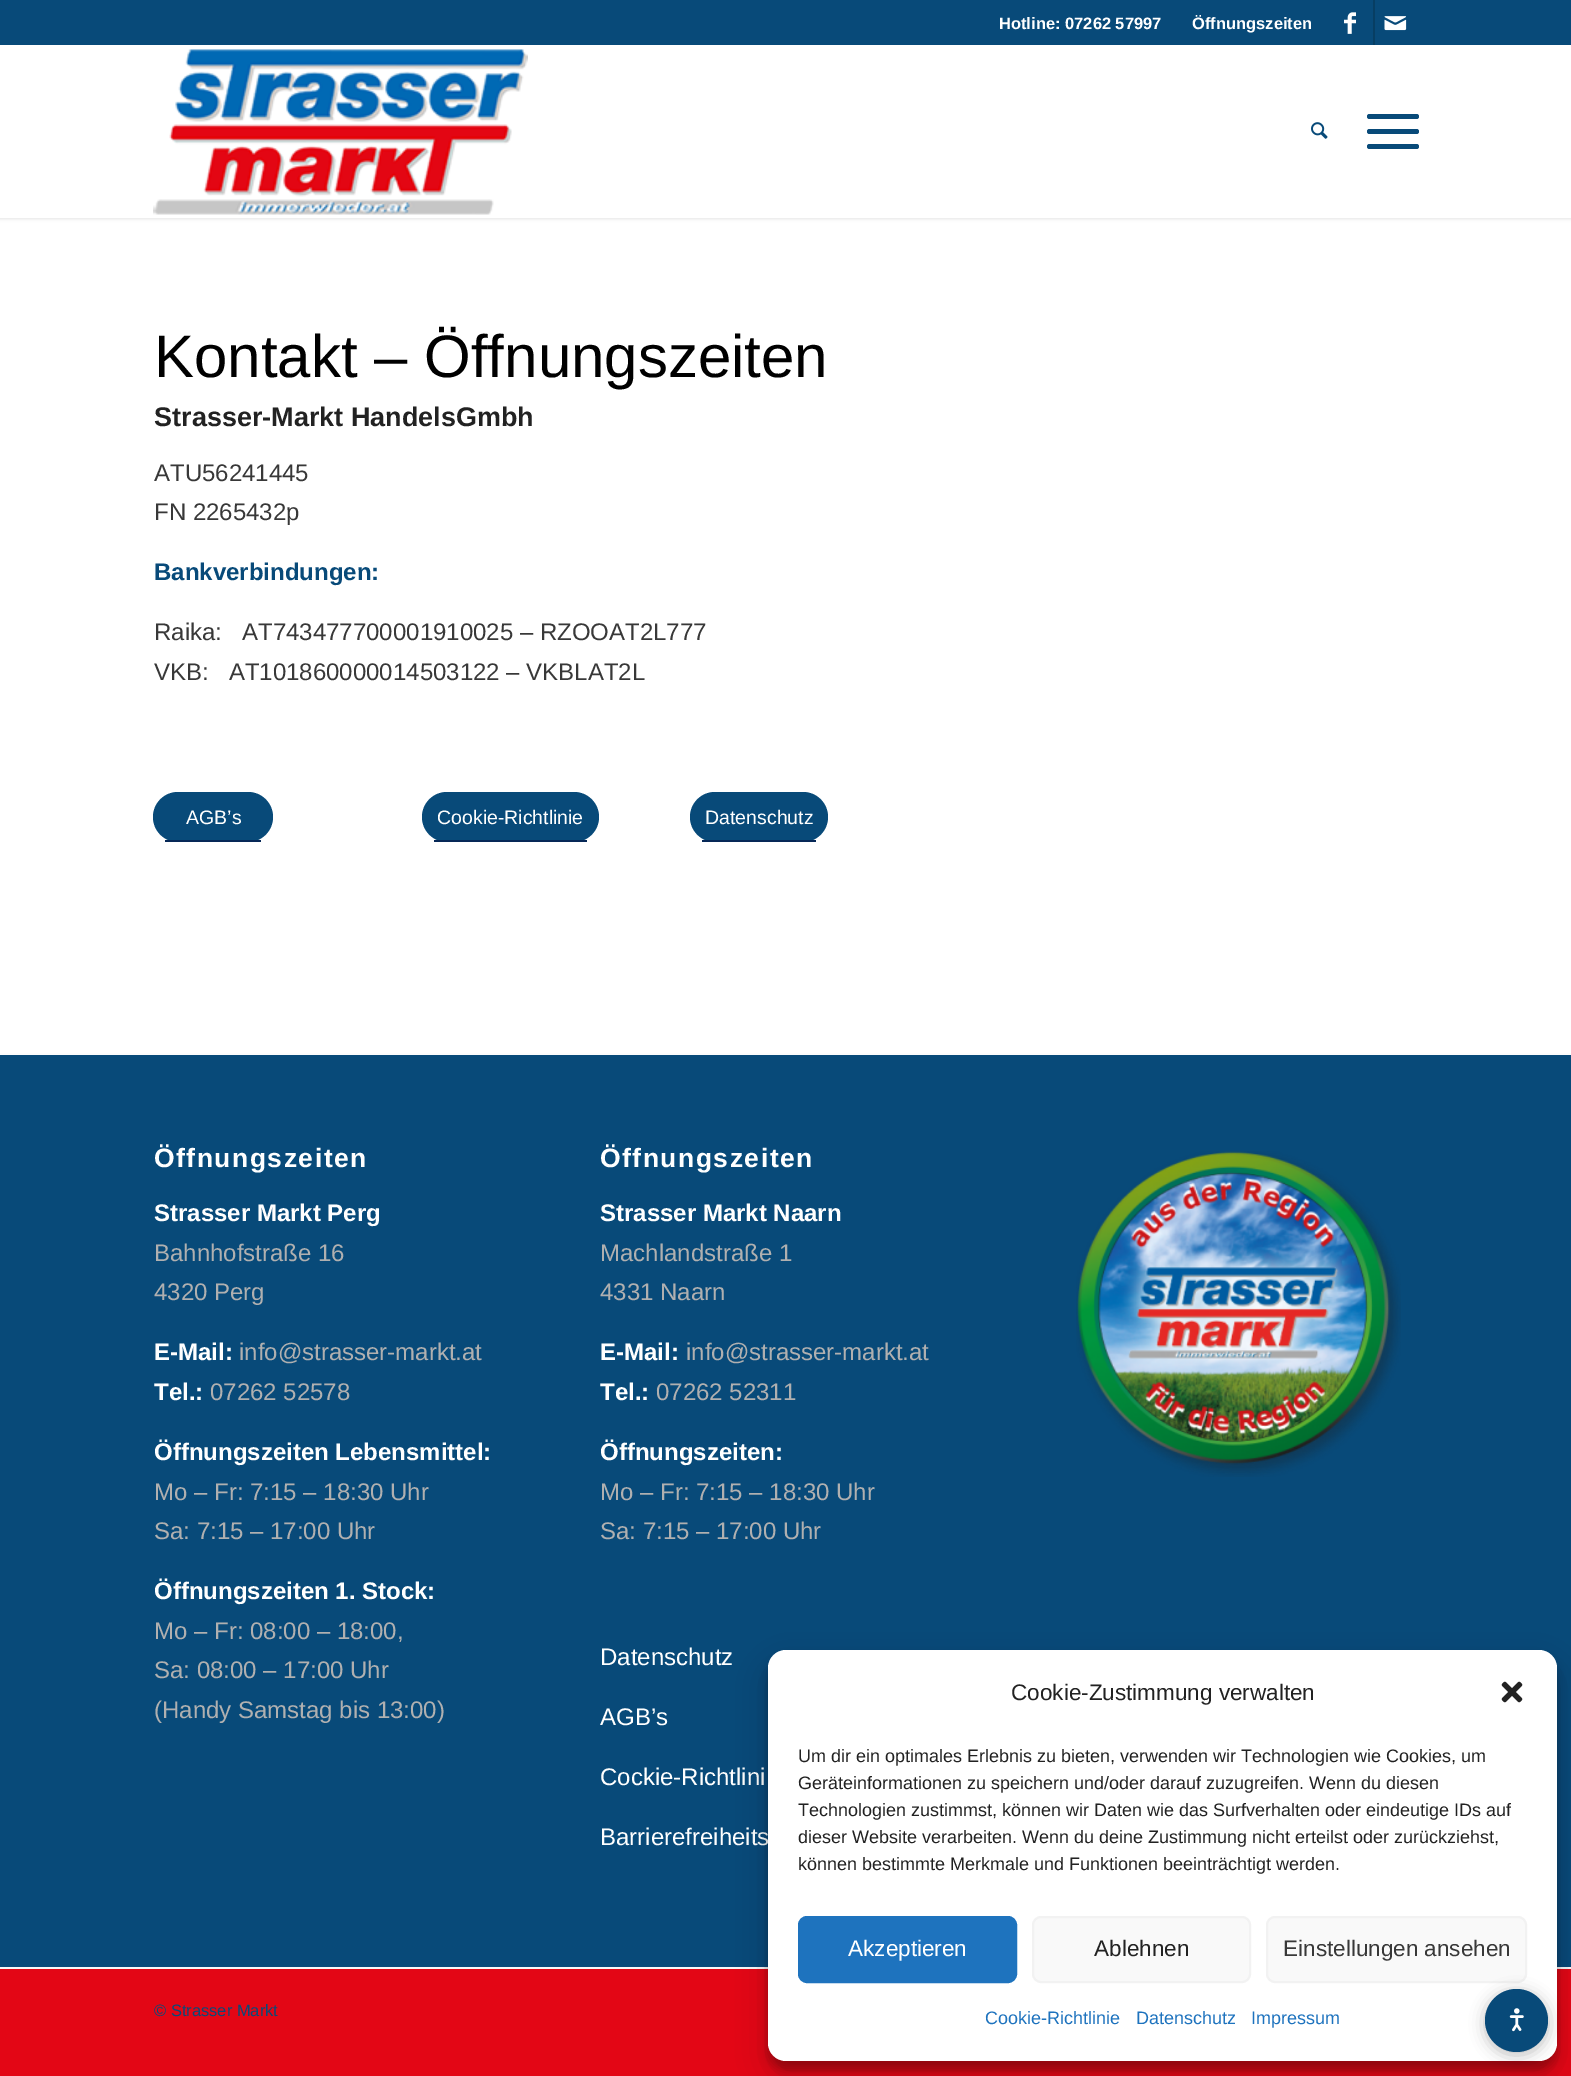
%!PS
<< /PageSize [1571 2076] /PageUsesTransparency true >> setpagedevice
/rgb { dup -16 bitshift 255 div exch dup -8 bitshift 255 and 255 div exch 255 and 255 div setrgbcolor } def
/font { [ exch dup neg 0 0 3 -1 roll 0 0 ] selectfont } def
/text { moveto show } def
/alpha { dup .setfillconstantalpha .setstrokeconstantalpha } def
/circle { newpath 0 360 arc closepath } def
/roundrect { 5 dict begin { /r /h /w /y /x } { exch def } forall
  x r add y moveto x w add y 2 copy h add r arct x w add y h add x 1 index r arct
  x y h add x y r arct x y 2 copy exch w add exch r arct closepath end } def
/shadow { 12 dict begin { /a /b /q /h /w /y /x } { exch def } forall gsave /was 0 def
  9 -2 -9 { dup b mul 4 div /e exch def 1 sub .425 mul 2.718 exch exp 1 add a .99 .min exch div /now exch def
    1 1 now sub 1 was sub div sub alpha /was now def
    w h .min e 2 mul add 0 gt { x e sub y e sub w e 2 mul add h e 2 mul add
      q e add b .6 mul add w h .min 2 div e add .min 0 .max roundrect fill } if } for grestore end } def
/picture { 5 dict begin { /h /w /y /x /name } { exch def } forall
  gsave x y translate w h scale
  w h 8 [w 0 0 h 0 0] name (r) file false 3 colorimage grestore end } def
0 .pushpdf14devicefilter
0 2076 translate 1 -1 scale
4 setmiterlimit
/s1 { /LiberationSans-Bold 16.5 font 16#FFFFFF rgb } def
/s2 { /LiberationSans-Regular 60 font 16#000000 rgb } def
/s3 { /LiberationSans-Bold 27 font 16#222222 rgb } def
/s4 { /LiberationSans-Regular 24 font 16#383838 rgb } def
/s5 { /LiberationSans-Bold 24 font 16#084A79 rgb } def
/s6 { /LiberationSans-Regular 19.5 font 16#FFFFFF rgb } def
/s7 { /LiberationSans-Bold 24 font 16#FFFFFF rgb } def
/s8 { /LiberationSans-Regular 24 font 16#B0B0B0 rgb } def
/s9 { /LiberationSans-Regular 24 font 16#FFFFFF rgb } def
/s10 { /LiberationSans-Regular 16.5 font 16#084A79 rgb } def
/s11 { /LiberationSans-Regular 22.5 font 16#222222 rgb } def
/s12 { /LiberationSans-Regular 18 font 16#222222 rgb } def
/s13 { /LiberationSans-Regular 22.5 font 16#FFFFFF rgb } def
/s14 { /LiberationSans-Regular 22.5 font 16#383838 rgb } def
/s15 { /LiberationSans-Regular 18 font 16#1E73BE rgb } def
16#E30615 rgb
0 0 1571 2076 rectfill
16#FFFFFF rgb
0 218 1571 835 rectfill
16#000000 rgb
-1 -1 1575 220 0 1.5 0.1 shadow
16#084A79 rgb
0 0 1571 45 rectfill
s1
(Hotline: 07262 57997) 999 29 text
(Öffnungszeiten) 1192 29 text
16#073E63 rgb
1373 0 2 45 rectfill
(pic1.raw) 1344 12 12 22 picture
(pic2.raw) 1384 16 23 15 picture
16#FFFFFF rgb
0 45 1571 173 rectfill
(pic3.raw) 153 49 375 166 picture
(pic4.raw) 1311 122 17 17 picture
16#084A79 rgb
1367 129 52 5 2.5 roundrect fill
1367 114 52 5 2.5 roundrect fill
1367 144 52 5 2.5 roundrect fill
s2
(Kontakt – Öffnungszeiten) 154 377 text
s3
(Strasser-Markt HandelsGmbh) 154 426 text
s4
(ATU56241445) 154 481 text
(FN 2265432p) 154 520 text
s5
(Bankverbindungen:) 154 580 text
s4
(Raika:   AT743477700001910025 – RZOOAT2L777) 154 640 text
(VKB:   AT101860000014503122 – VKBLAT2L) 154 680 text
16#084A79 rgb
153 792 120 50 25 roundrect fill
16#062857 rgb
165 840 96 2 rectfill
s6
(AGB’s) 186 824 text
16#084A79 rgb
422 792 177 50 25 roundrect fill
16#062857 rgb
434 840 153 2 rectfill
s6
(Cookie-Richtlinie) 437 824 text
16#084A79 rgb
690 792 138 50 25 roundrect fill
16#062857 rgb
702 840 114 2 rectfill
s6
(Datenschutz) 705 824 text
16#084A79 rgb
0 1055 1571 912 rectfill
16#FCFCFC rgb
0 1053 1571 2 rectfill
/LiberationSans-Bold 26.5 font
16#FFFFFF rgb
154 1167 moveto 1.5 0 (Öffnungszeiten) ashow
s7
(Strasser Markt Perg) 154 1221 text
s8
(Bahnhofstraße 16) 154 1261 text
(4320 Perg) 154 1300 text
s7
(E-Mail:) 154 1360 text
s8
(info@strasser-markt.at) 239 1360 text
s7
(Tel.:) 154 1400 text
s8
(07262 52578) 210 1400 text
s7
(Öffnungszeiten Lebensmittel:) 154 1460 text
s8
(Mo – Fr: 7:15 – 18:30 Uhr) 154 1500 text
(Sa: 7:15 – 17:00 Uhr) 154 1539 text
s7
(Öffnungszeiten 1. Stock:) 154 1599 text
s8
(Mo – Fr: 08:00 – 18:00,) 154 1639 text
(Sa: 08:00 – 17:00 Uhr) 154 1678 text
(\(Handy Samstag bis 13:00\)) 154 1718 text
/LiberationSans-Bold 26.5 font
16#FFFFFF rgb
600 1167 moveto 1.5 0 (Öffnungszeiten) ashow
s7
(Strasser Markt Naarn) 600 1221 text
s8
(Machlandstraße 1) 600 1261 text
(4331 Naarn) 600 1300 text
s7
(E-Mail:) 600 1360 text
s8
(info@strasser-markt.at) 686 1360 text
s7
(Tel.:) 600 1400 text
s8
(07262 52311) 656 1400 text
s7
(Öffnungszeiten:) 600 1460 text
s8
(Mo – Fr: 7:15 – 18:30 Uhr) 600 1500 text
(Sa: 7:15 – 17:00 Uhr) 600 1539 text
s9
(Datenschutz) 600 1665 text
(AGB’s) 600 1725 text
(Cockie-Richtlini) 600 1785 text
(Barrierefreiheits) 600 1845 text
(pic5.raw) 1076 1151 325 326 picture
16#F8F8F8 rgb
0 1967 1571 2 rectfill
s10
(© Strasser Markt) 154 2016 text
16#000000 rgb
768 1659 789 411 18 4.5 0.23 shadow
768 1665 789 411 18 15 0.19 shadow
16#FFFFFF rgb
768 1650 789 411 18 roundrect fill
s11
(Cookie-Zustimmung verwalten) 1011 1700 text
(pic6.raw) 1501 1681 22 22 picture
s12
(Um dir ein optimales Erlebnis zu bieten, verwenden wir Technologien wie Cookies, um) 798 1762 text
(Geräteinformationen zu speichern und/oder darauf zuzugreifen. Wenn du diesen) 798 1789 text
(Technologien zustimmst, können wir Daten wie das Surfverhalten oder eindeutige IDs auf) 798 1816 text
(dieser Website verarbeiten. Wenn du deine Zustimmung nicht erteilst oder zurückziehst,) 798 1843 text
(können bestimmte Merkmale und Funktionen beeinträchtigt werden.) 798 1870 text
16#1E73BE rgb
799 1917 217 65 8 roundrect gsave fill grestore
2 setlinewidth
stroke
s13
(Akzeptieren) 848 1956 text
16#F9F9F9 rgb
1033 1917 217 65 8 roundrect gsave fill grestore
16#F2F2F2 rgb
stroke
s11
(Ablehnen) 1094 1956 text
16#F9F9F9 rgb
1267 1917 259 65 8 roundrect gsave fill grestore
16#F2F2F2 rgb
stroke
s14
(Einstellungen ansehen) 1283 1956 text
s15
(Cookie-Richtlinie) 985 2024 text
(Datenschutz) 1136 2024 text
(Impressum) 1251 2024 text
16#000000 rgb
1485 1992 63 63 31.5 7.5 0.25 shadow
16#084A79 rgb
1516.5 2020.5 31.5 circle fill
(pic7.raw) 1509 2008 15 24 picture
.poppdf14devicefilter showpage
